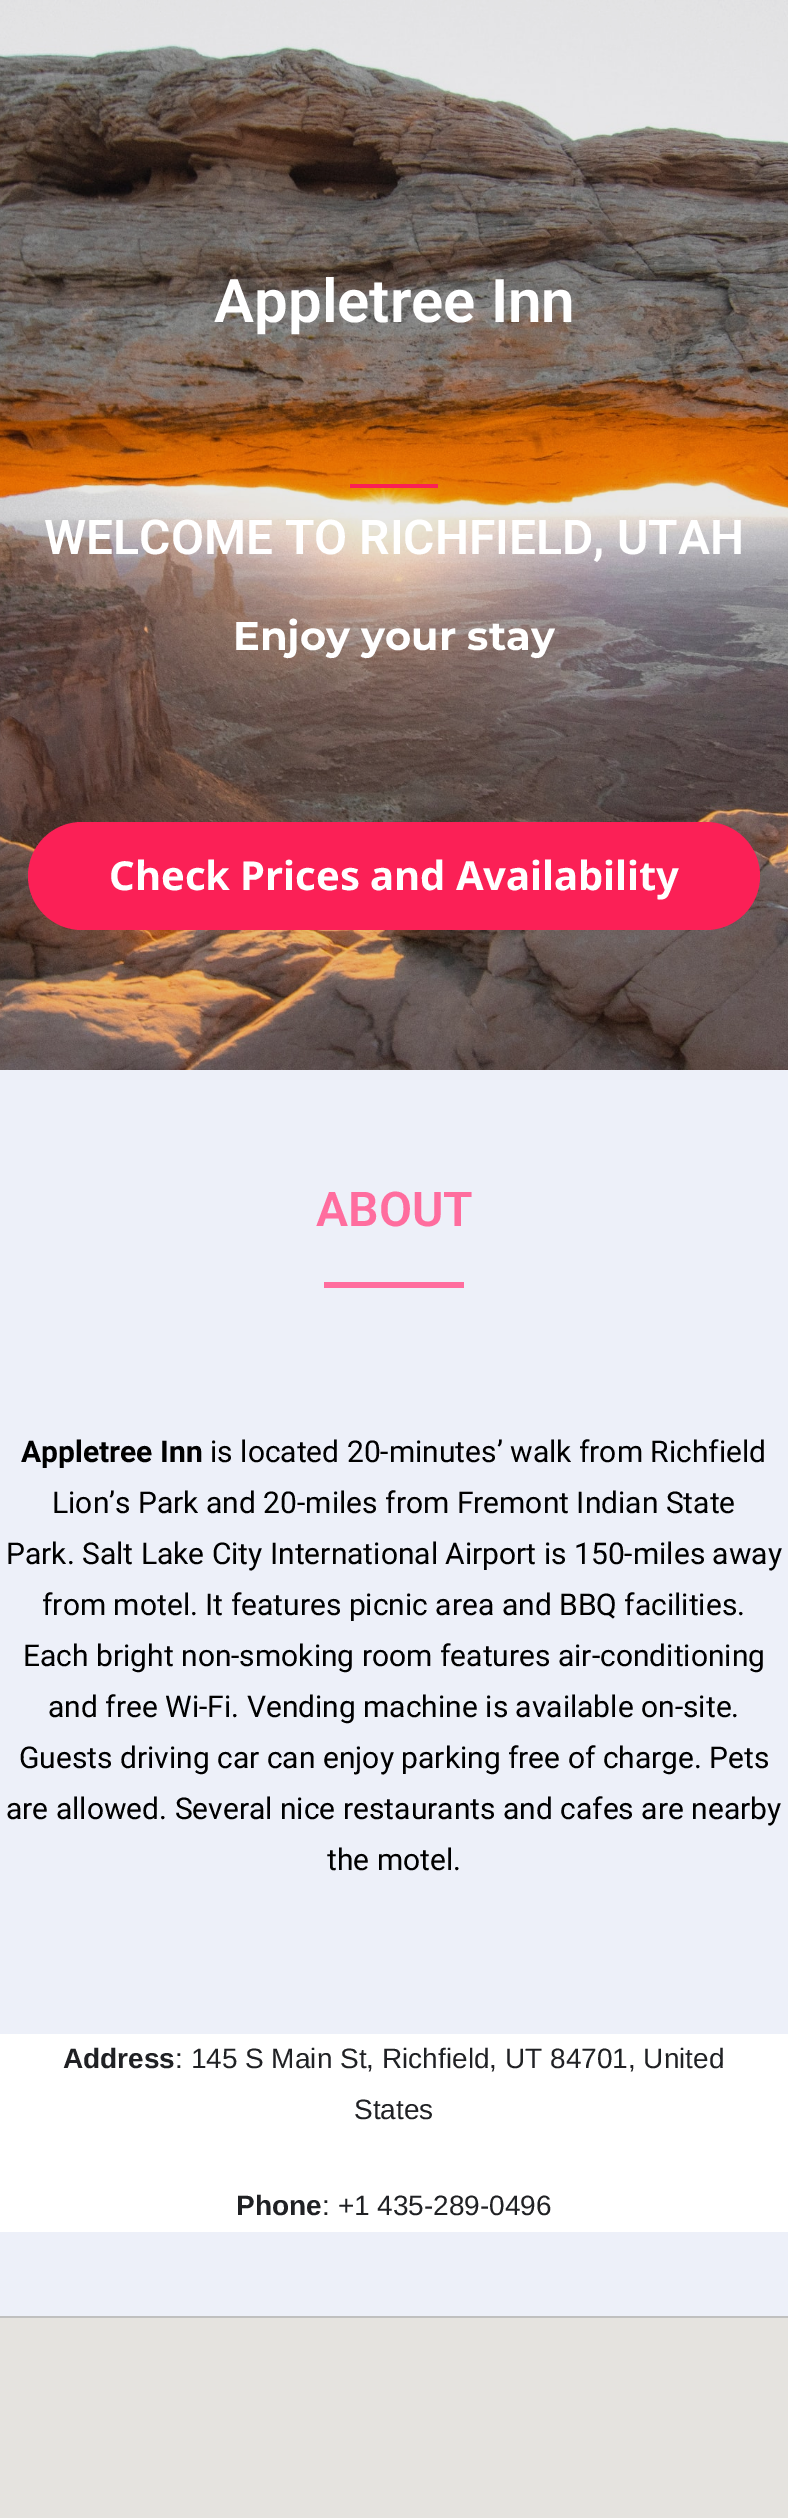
%!PS
<< /PageSize [788 2518] >> setpagedevice
/rgb { dup -16 bitshift 255 div exch dup -8 bitshift 255 and 255 div exch 255 and 255 div setrgbcolor } def
/font { [ exch dup neg 0 0 3 -1 roll 0 0 ] selectfont } def
/text { moveto show } def
/roundrect { 5 dict begin { /r /h /w /y /x } { exch def } forall
  x r add y moveto x w add y 2 copy h add r arct x w add y h add x 1 index r arct
  x y h add x y r arct x y 2 copy exch w add exch r arct closepath end } def
/picture { 5 dict begin { /h /w /y /x /name } { exch def } forall
  gsave x y translate w h scale
  w h 8 [w 0 0 h 0 0] name (r) file false 3 colorimage grestore end } def
0 2518 translate 1 -1 scale
4 setmiterlimit
/s1 { /Roboto-SemiBold 60 font 16#FFFFFF rgb } def
/s2 { /Roboto-SemiBold 48 font 16#FFFFFF rgb } def
/s3 { /Montserrat-Thin 40 font 16#FFFFFF rgb } def
/s4 { /NotoSans-Bold 40 font 16#FFFFFF rgb } def
/s5 { /Roboto-SemiBold 48 font 16#FF6D9E rgb } def
/s6 { /Roboto-Bold 30 font 16#000000 rgb } def
/s7 { /Roboto-Regular 30 font 16#000000 rgb } def
/s8 { /LiberationSans-Bold 28 font 16#202124 rgb } def
/s9 { /LiberationSans-Regular 28 font 16#202124 rgb } def
16#FFFFFF rgb
0 0 788 2518 rectfill
(pic1.raw) 0 0 788 1070 picture
s1
(Appletree Inn) 214 322 text
16#FB2056 rgb
350 484 88 4 rectfill
s2
(WELCOME TO RICHFIELD, UTAH) 44 554 text
s3
(Enjoy your stay) 233 650 text
16#FB2056 rgb
28 822 732 108 54 roundrect fill
s4
(Check Prices and Availability) 109 890 text
16#EDF0F9 rgb
0 1070 788 1246 rectfill
s5
(ABOUT) 316 1226 text
324 1282 140 6 rectfill
s6
(Appletree Inn) 21 1462 text
s7
(is located 20-minutes’ walk from Richfield) 210 1462 text
(Lion’s Park and 20-miles from Fremont Indian State) 52 1513 text
(Park. Salt Lake City International Airport is 150-miles away) 6 1564 text
(from motel. It features picnic area and BBQ facilities.) 42 1615 text
(Each bright non-smoking room features air-conditioning) 23 1666 text
(and free Wi-Fi. Vending machine is available on-site.) 48 1717 text
(Guests driving car can enjoy parking free of charge. Pets) 19 1768 text
(are allowed. Several nice restaurants and cafes are nearby) 6 1819 text
(the motel.) 327 1870 text
16#FFFFFF rgb
0 2034 788 198 rectfill
s8
(Address) 63 2068 text
s9
(: 145 S Main St, Richfield, UT 84701, United) 175 2068 text
(States) 354 2119 text
s8
(Phone) 236 2215 text
s9
(: +1 435-289-0496) 322 2215 text
(pic2.raw) 0 2316 788 202 picture
showpage
